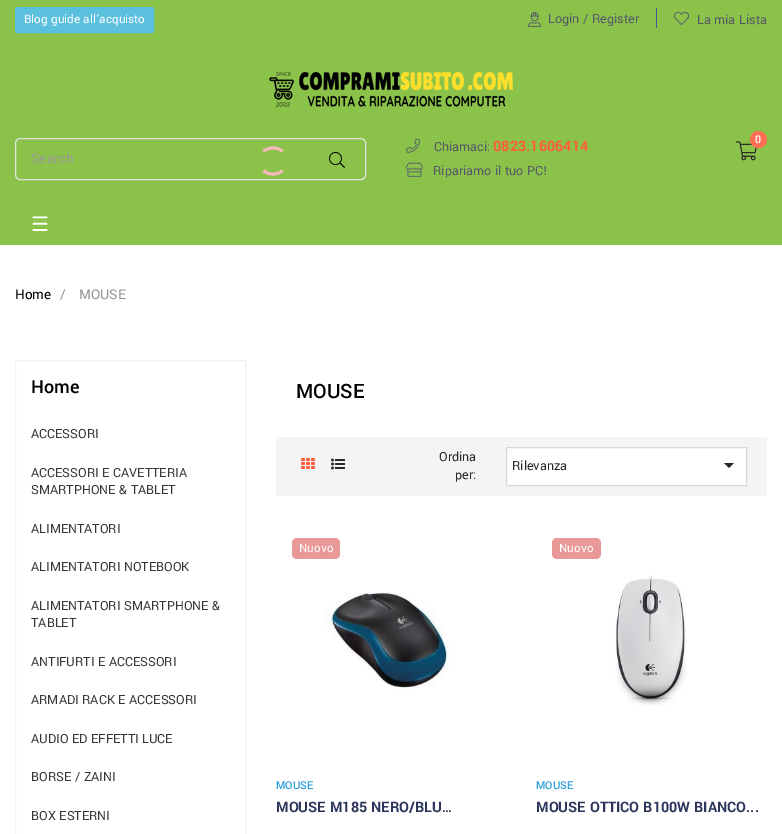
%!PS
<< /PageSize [782 834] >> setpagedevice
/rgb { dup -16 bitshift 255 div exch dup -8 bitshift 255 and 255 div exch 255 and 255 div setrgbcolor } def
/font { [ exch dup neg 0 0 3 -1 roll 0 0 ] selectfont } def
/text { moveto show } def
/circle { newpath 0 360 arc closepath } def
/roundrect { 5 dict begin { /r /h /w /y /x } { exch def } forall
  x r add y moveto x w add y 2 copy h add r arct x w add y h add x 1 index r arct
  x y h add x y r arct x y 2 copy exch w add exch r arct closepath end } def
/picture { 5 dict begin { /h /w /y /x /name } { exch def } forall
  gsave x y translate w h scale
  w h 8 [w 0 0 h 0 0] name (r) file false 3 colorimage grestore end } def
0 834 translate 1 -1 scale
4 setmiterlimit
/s1 { /Yantramanav-Regular 13 font 16#FFFFFF rgb } def
/s2 { /Yantramanav-Regular 14 font 16#565969 rgb } def
/s3 { /Yantramanav-Regular 15 font 16#999999 rgb } def
/s4 { /Yantramanav-Bold 16 font 16#FF5E3A rgb } def
/s5 { /Yantramanav-Medium 12 font 16#FFFFFF rgb } def
/s6 { /DejaVuSans-Regular 20 font 16#FFFFFF rgb } def
/s7 { /Yantramanav-Regular 15 font 16#000000 rgb } def
/s8 { /Yantramanav-Regular 15 font 16#929292 rgb } def
/s9 { /Yantramanav-Medium 20 font 16#000000 rgb } def
/s10 { /Yantramanav-Regular 14 font 16#363636 rgb } def
/s11 { /Yantramanav-Medium 22 font 16#000000 rgb } def
/s12 { /Yantramanav-Regular 14 font 16#272727 rgb } def
/s13 { /Yantramanav-Medium 12 font 16#2D9CDB rgb } def
/s14 { /Yantramanav-Bold 16 font 16#2C365D rgb } def
16#FFFFFF rgb
0 0 782 834 rectfill
16#8BC34A rgb
0 0 782 245 rectfill
16#5BC0DE rgb
15.5 7.5 138 25 1.5 roundrect gsave fill grestore
stroke
s1
(Blog guide all'acquisto) 24 23 text
(pic1.raw) 528 11 14 16 picture
s2
(Login / Register) 548 23 text
16#485790 rgb
656 8 1 20 rectfill
(pic2.raw) 674 11 15 14 picture
s2
(La mia Lista) 697 24 text
(pic3.raw) 269 71 244 36 picture
16#E1E1E1 rgb
15.5 138.5 350 41 4.5 roundrect stroke
s3
(Search) 31 163 text
16#F7B8B8 rgb
3 setlinewidth
263.5 151.5 moveto 268.5 146.5 277.5 146.5 282.5 151.5 curveto 282.5 170.5 moveto 277.5 175.5 268.5 175.5 263.5 170.5 curveto stroke
(pic4.raw) 329 152 16 16 picture
(pic5.raw) 406 138 14 15 picture
s2
(Chiamaci:) 434 151 text
s4
(0823.1606414) 493 151 text
(pic6.raw) 736 141 21 20 picture
16#FF6F54 rgb
758.5 139.5 8.5 circle fill
s5
(0) 755 143 text
(pic7.raw) 406 162 17 15 picture
s2
(Ripariamo il tuo PC!) 433 175 text
s6
(☰) 31 231 text
s7
(Home) 15 299 text
s8
(/) 60 299 text
(MOUSE) 79 299 text
16#F2F2F2 rgb
1 setlinewidth
15.5 360.5 230 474 rectstroke
s9
(Home) 31 393 text
s10
(ACCESSORI) 31 438 text
(ACCESSORI E CAVETTERIA) 31 477 text
(SMARTPHONE & TABLET) 31 494 text
(ALIMENTATORI) 31 533 text
(ALIMENTATORI NOTEBOOK) 31 571 text
(ALIMENTATORI SMARTPHONE &) 31 610 text
(TABLET) 31 627 text
(ANTIFURTI E ACCESSORI) 31 666 text
(ARMADI RACK E ACCESSORI) 31 704 text
(AUDIO ED EFFETTI LUCE) 31 743 text
(BORSE / ZAINI) 31 781 text
(BOX ESTERNI) 31 820 text
s11
(MOUSE) 296 398 text
16#F4F4F4 rgb
276 437 491 59 rectfill
(pic8.raw) 301 458 14 11 picture
(pic9.raw) 331 458 14 12 picture
s12
(Ordina) 439 461 text
(per:) 455 479 text
16#FFFFFF rgb
506.5 447.5 moveto 746.5 447.5 lineto 746.5 485.5 lineto 506.5 485.5 lineto closepath gsave fill grestore
16#D9D9D9 rgb
stroke
s12
(Rilevanza) 512 470 text
724 463 moveto 734 463 lineto 729 468 lineto closepath fill
16#E99898 rgb
292 538 48 21 5 roundrect fill
s1
(Nuovo) 299 552 text
(pic10.raw) 325 592 125 97 picture
s13
(MOUSE) 276 789 text
s14
(MOUSE M185 NERO/BLU…) 276 812 text
16#E99898 rgb
552 538 49 21 5 roundrect fill
s1
(Nuovo) 559 552 text
(pic11.raw) 615 575 72 131 picture
s13
(MOUSE) 536 789 text
s14
(MOUSE OTTICO B100W BIANCO...) 536 812 text
showpage
